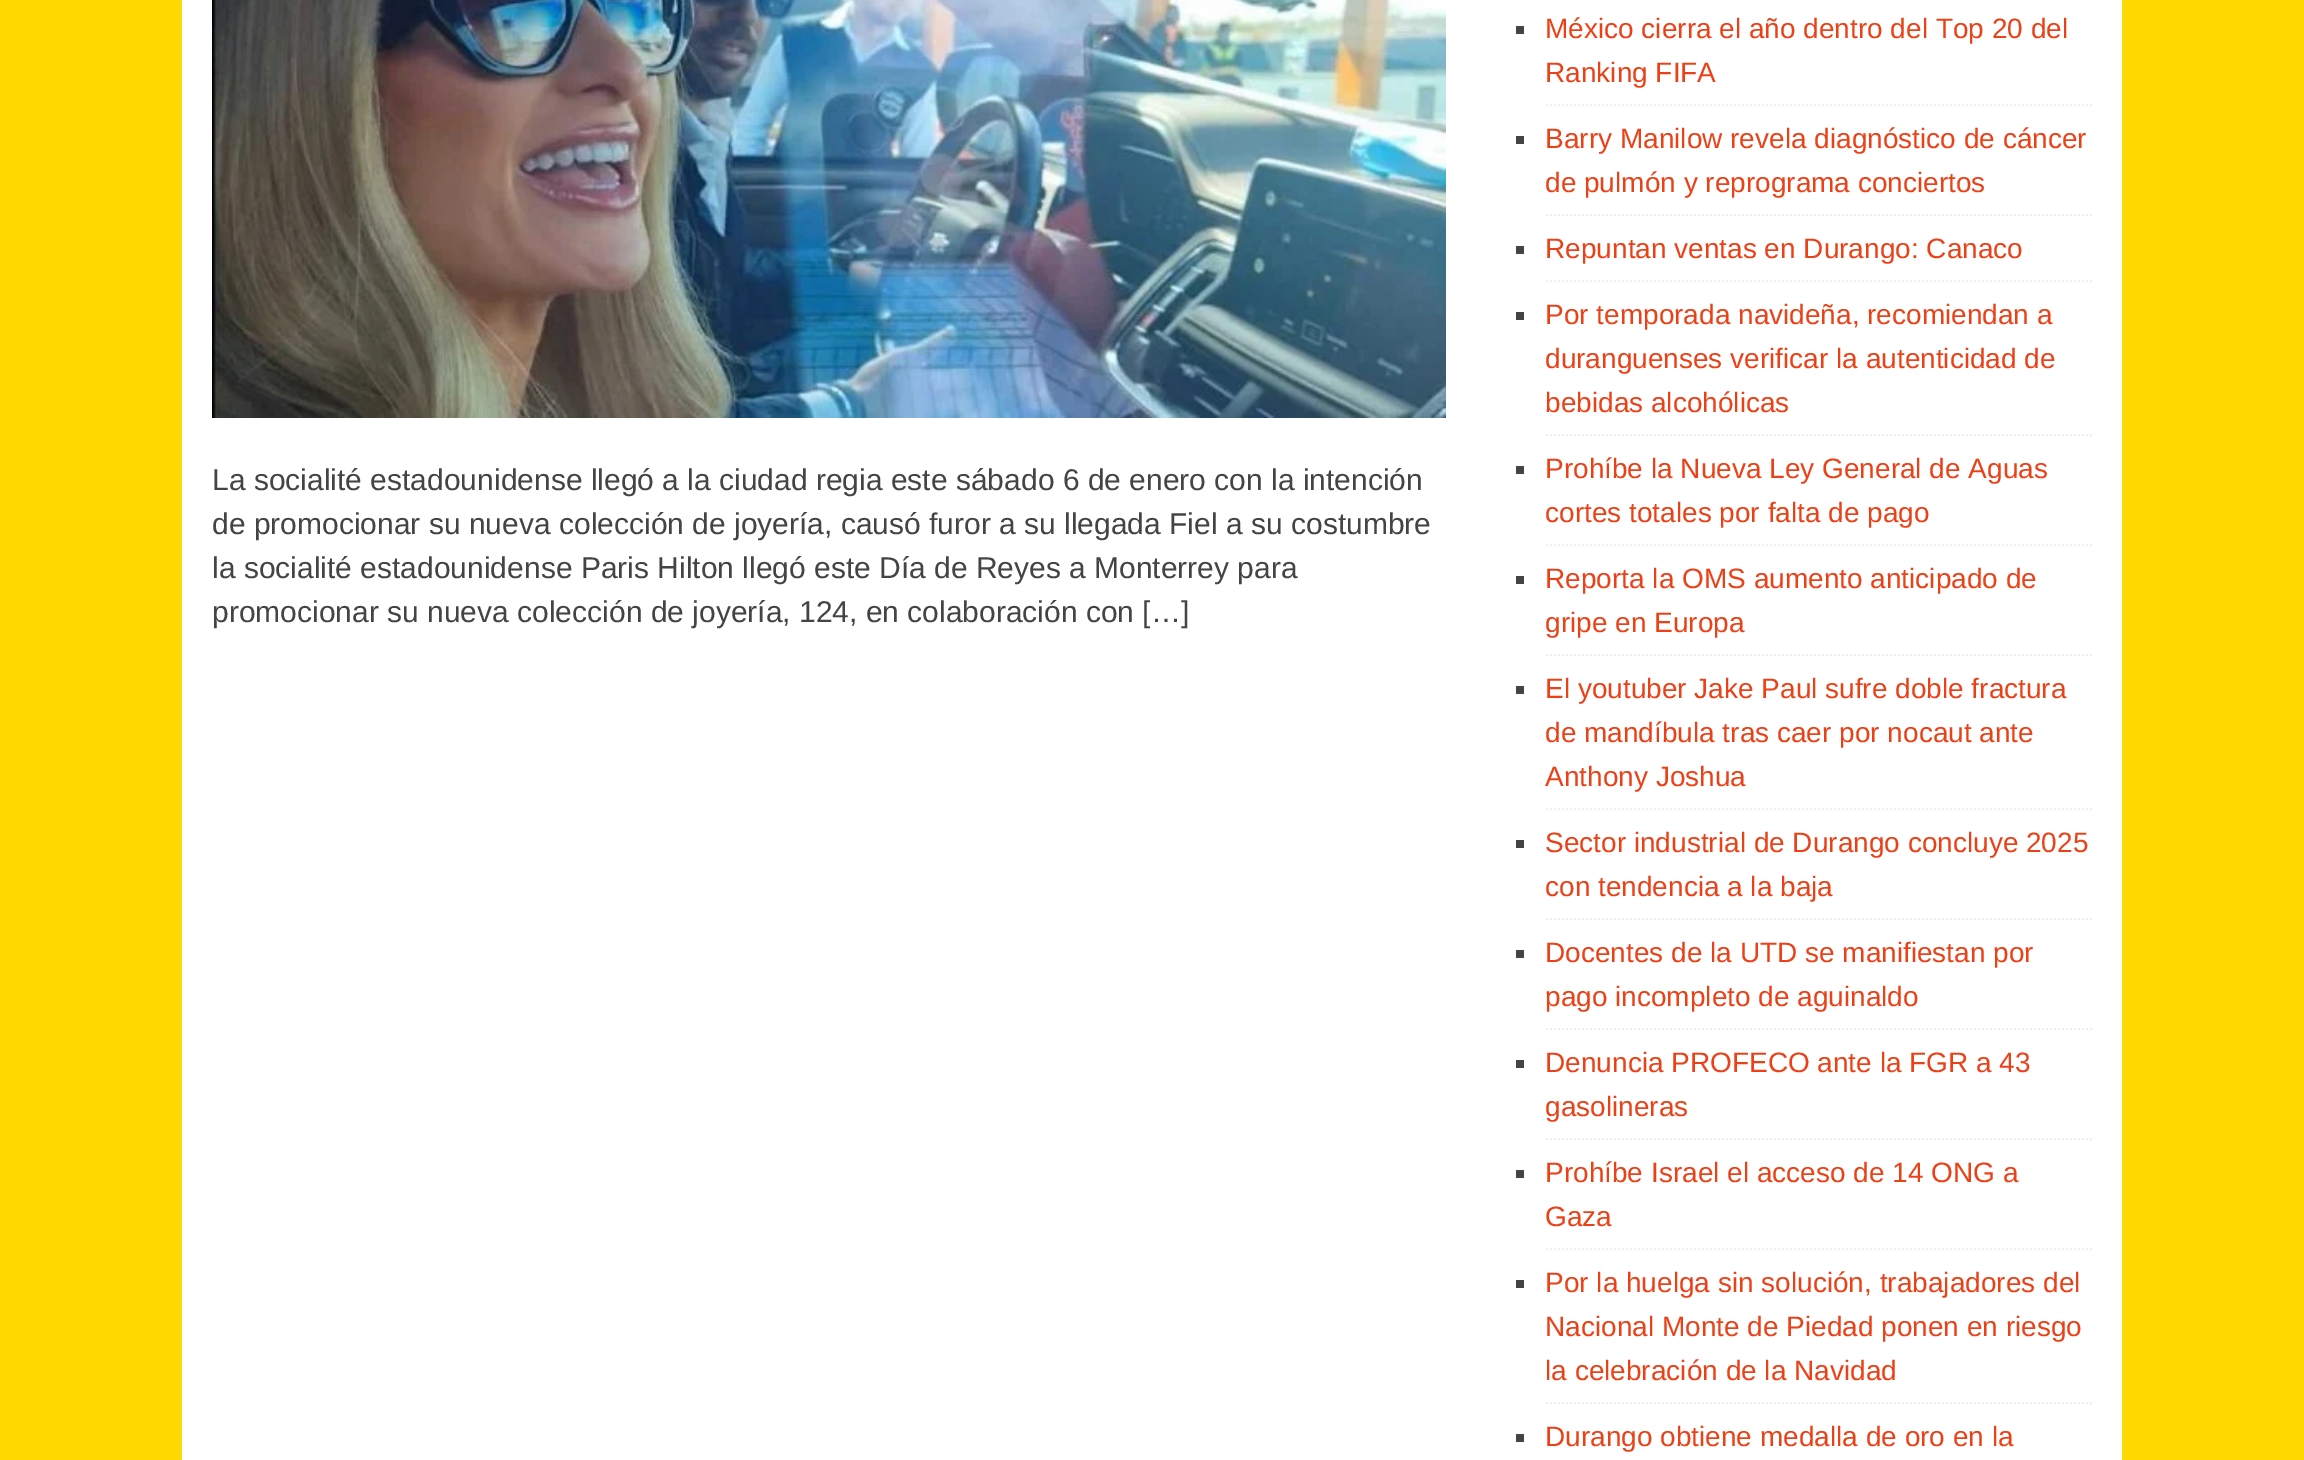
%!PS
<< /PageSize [2304 1460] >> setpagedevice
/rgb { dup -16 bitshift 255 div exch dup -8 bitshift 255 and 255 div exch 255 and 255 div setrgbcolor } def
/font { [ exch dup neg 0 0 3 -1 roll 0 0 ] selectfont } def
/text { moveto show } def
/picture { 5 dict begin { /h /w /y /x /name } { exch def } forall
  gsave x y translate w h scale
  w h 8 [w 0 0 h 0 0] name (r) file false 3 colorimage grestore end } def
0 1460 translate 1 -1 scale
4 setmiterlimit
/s1 { /LiberationSans-Regular 30 font 16#444444 rgb } def
/s2 { /LiberationSans-Regular 28 font 16#EC4017 rgb } def
16#FFD900 rgb
0 0 2304 1460 rectfill
16#FFFFFF rgb
182 0 1940 1460 rectfill
(pic1.raw) 212 0 1234 418 picture
s1
(La socialité estadounidense llegó a la ciudad regia este sábado 6 de enero con la intención) 212 490 text
(de promocionar su nueva colección de joyería, causó furor a su llegada Fiel a su costumbre) 212 534 text
(la socialité estadounidense Paris Hilton llegó este Día de Reyes a Monterrey para) 212 578 text
(promocionar su nueva colección de joyería, 124, en colaboración con […]) 212 622 text
16#EFEFEF rgb
2 setlinewidth
[2 2] 0 setdash
1546 105 moveto 2092 105 lineto stroke
16#444444 rgb
1516 26 8 8 rectfill
s2
(México cierra el año dentro del Top 20 del) 1545 38 text
(Ranking FIFA) 1545 82 text
16#EFEFEF rgb
1546 215 moveto 2092 215 lineto stroke
16#444444 rgb
1516 136 8 8 rectfill
s2
(Barry Manilow revela diagnóstico de cáncer) 1545 148 text
(de pulmón y reprograma conciertos) 1545 192 text
16#EFEFEF rgb
1546 281 moveto 2092 281 lineto stroke
16#444444 rgb
1516 246 8 8 rectfill
s2
(Repuntan ventas en Durango: Canaco) 1545 258 text
16#EFEFEF rgb
1546 435 moveto 2092 435 lineto stroke
16#444444 rgb
1516 312 8 8 rectfill
s2
(Por temporada navideña, recomiendan a) 1545 324 text
(duranguenses verificar la autenticidad de) 1545 368 text
(bebidas alcohólicas) 1545 412 text
16#EFEFEF rgb
1546 545 moveto 2092 545 lineto stroke
16#444444 rgb
1516 466 8 8 rectfill
s2
(Prohíbe la Nueva Ley General de Aguas) 1545 478 text
(cortes totales por falta de pago) 1545 522 text
16#EFEFEF rgb
1546 655 moveto 2092 655 lineto stroke
16#444444 rgb
1516 576 8 8 rectfill
s2
(Reporta la OMS aumento anticipado de) 1545 588 text
(gripe en Europa) 1545 632 text
16#EFEFEF rgb
1546 809 moveto 2092 809 lineto stroke
16#444444 rgb
1516 686 8 8 rectfill
s2
(El youtuber Jake Paul sufre doble fractura) 1545 698 text
(de mandíbula tras caer por nocaut ante) 1545 742 text
(Anthony Joshua) 1545 786 text
16#EFEFEF rgb
1546 919 moveto 2092 919 lineto stroke
16#444444 rgb
1516 840 8 8 rectfill
s2
(Sector industrial de Durango concluye 2025) 1545 852 text
(con tendencia a la baja) 1545 896 text
16#EFEFEF rgb
1546 1029 moveto 2092 1029 lineto stroke
16#444444 rgb
1516 950 8 8 rectfill
s2
(Docentes de la UTD se manifiestan por) 1545 962 text
(pago incompleto de aguinaldo) 1545 1006 text
16#EFEFEF rgb
1546 1139 moveto 2092 1139 lineto stroke
16#444444 rgb
1516 1060 8 8 rectfill
s2
(Denuncia PROFECO ante la FGR a 43) 1545 1072 text
(gasolineras) 1545 1116 text
16#EFEFEF rgb
1546 1249 moveto 2092 1249 lineto stroke
16#444444 rgb
1516 1170 8 8 rectfill
s2
(Prohíbe Israel el acceso de 14 ONG a) 1545 1182 text
(Gaza) 1545 1226 text
16#EFEFEF rgb
1546 1403 moveto 2092 1403 lineto stroke
16#444444 rgb
1516 1280 8 8 rectfill
s2
(Por la huelga sin solución, trabajadores del) 1545 1292 text
(Nacional Monte de Piedad ponen en riesgo) 1545 1336 text
(la celebración de la Navidad) 1545 1380 text
16#444444 rgb
1516 1434 8 8 rectfill
s2
(Durango obtiene medalla de oro en la) 1545 1446 text
showpage
